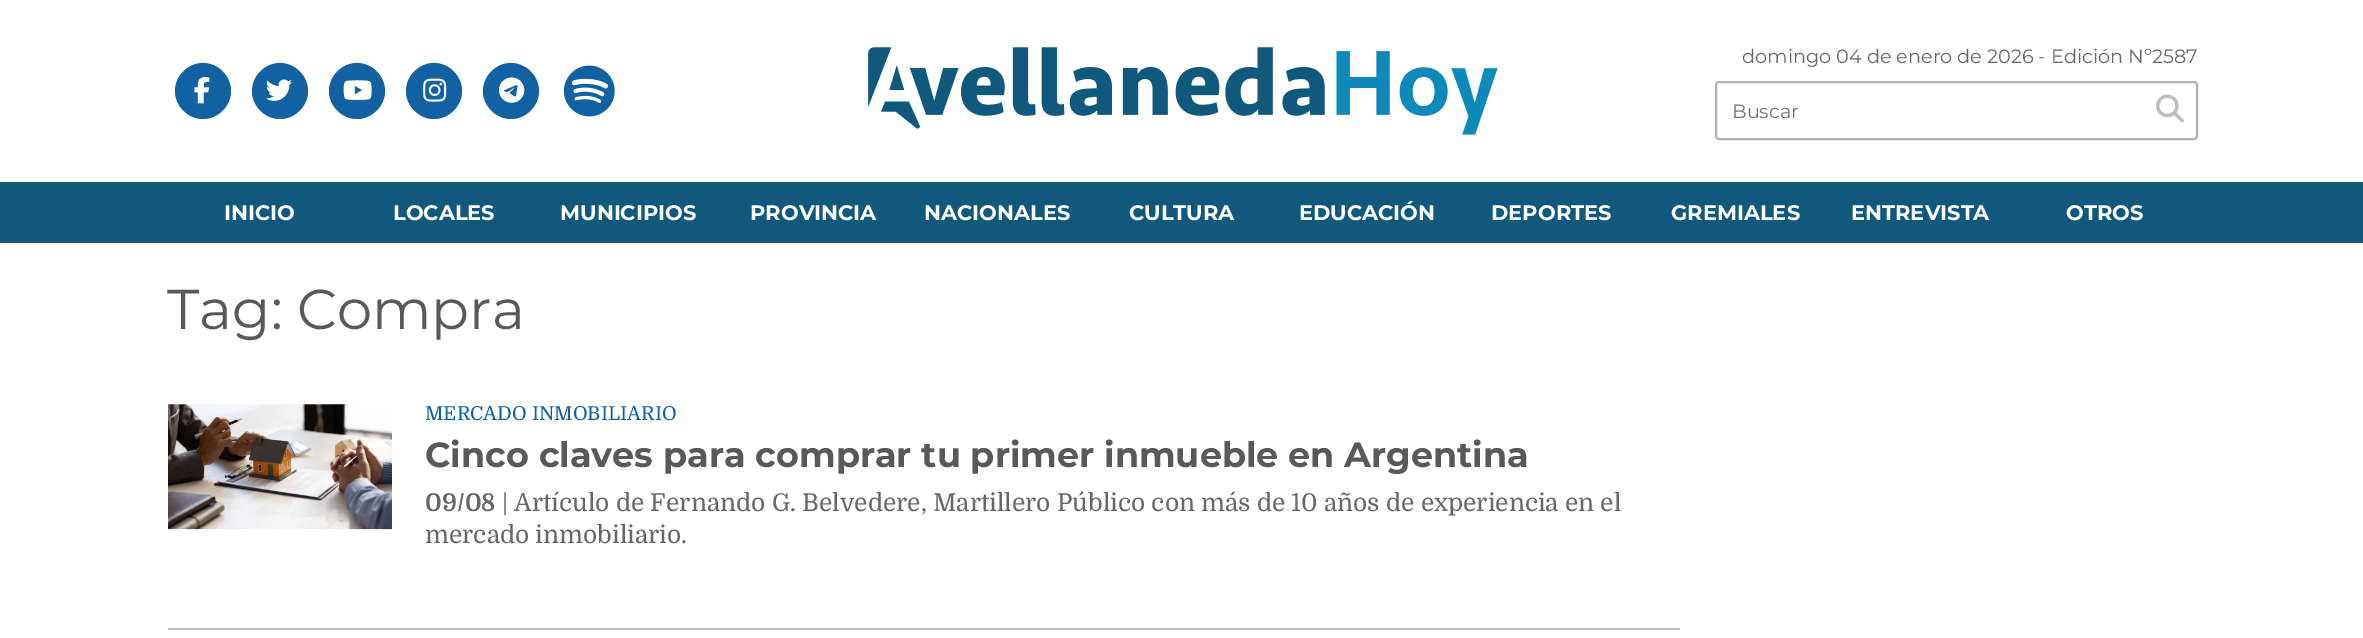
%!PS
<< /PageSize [2363 638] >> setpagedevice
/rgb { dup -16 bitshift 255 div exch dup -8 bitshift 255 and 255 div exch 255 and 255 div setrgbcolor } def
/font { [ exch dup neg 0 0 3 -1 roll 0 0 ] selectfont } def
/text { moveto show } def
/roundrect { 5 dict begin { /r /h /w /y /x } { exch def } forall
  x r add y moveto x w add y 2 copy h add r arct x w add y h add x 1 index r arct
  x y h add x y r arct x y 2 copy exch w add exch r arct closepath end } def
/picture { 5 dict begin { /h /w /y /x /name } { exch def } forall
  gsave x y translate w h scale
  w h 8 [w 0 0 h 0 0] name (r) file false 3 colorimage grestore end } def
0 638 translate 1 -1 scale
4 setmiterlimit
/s1 { /Montserrat-Regular 19.25 font 16#676767 rgb } def
/s2 { /Montserrat-Regular 19.25 font 16#757575 rgb } def
/s3 { /Montserrat-Bold 21 font 16#FFFFFF rgb } def
/s4 { /Montserrat-Regular 56 font 16#58595B rgb } def
/s5 { /Domine-Regular 19.25 font 16#1261A3 rgb } def
/s6 { /Montserrat-Bold 35 font 16#58595B rgb } def
/s7 { /Domine-Bold 24.5 font 16#676767 rgb } def
/s8 { /Domine-Regular 24.5 font 16#676767 rgb } def
16#FFFFFF rgb
0 0 2363 638 rectfill
16#1261A3 rgb
203 119 moveto 218 119 231 106 231 91 curveto 231 76 218 63 203 63 curveto 188 63 175 76 175 91 curveto 175 106 188 119 203 119 curveto closepath fill
(pic1.raw) 194 77 16 27 picture
280 119 moveto 295 119 308 106 308 91 curveto 308 76 295 63 280 63 curveto 265 63 252 76 252 91 curveto 252 106 265 119 280 119 curveto closepath fill
(pic2.raw) 266 79 26 22 picture
357 119 moveto 372 119 385 106 385 91 curveto 385 76 372 63 357 63 curveto 342 63 329 76 329 91 curveto 329 106 342 119 357 119 curveto closepath fill
(pic3.raw) 343 80 29 20 picture
434 119 moveto 449 119 462 106 462 91 curveto 462 76 449 63 434 63 curveto 419 63 406 76 406 91 curveto 406 106 419 119 434 119 curveto closepath fill
(pic4.raw) 423 78 24 24 picture
511 119 moveto 526 119 539 106 539 91 curveto 539 76 526 63 511 63 curveto 496 63 483 76 483 91 curveto 483 106 496 119 511 119 curveto closepath fill
(pic5.raw) 498 77 27 26 picture
(pic6.raw) 563 65 52 52 picture
(pic7.raw) 868 47 630 88 picture
s1
(domingo 04 de enero de 2026 - Edición Nº2587) 1742 63 text
16#B3B3B3 rgb
2 setlinewidth
1716 82 481 57 3 roundrect stroke
s2
(Buscar) 1732 118 text
(pic8.raw) 2156 94 28 29 picture
16#10587C rgb
0 182 2363 61 rectfill
s3
(INICIO) 224 220 text
(LOCALES) 393 220 text
(MUNICIPIOS) 560 220 text
(PROVINCIA) 750 220 text
(NACIONALES) 924 220 text
(CULTURA) 1129 220 text
(EDUCACIÓN) 1299 220 text
(DEPORTES) 1491 220 text
(GREMIALES) 1671 220 text
(ENTREVISTA) 1851 220 text
(OTROS) 2066 220 text
s4
(Tag: Compra) 167 329 text
16#BBBDBF rgb
168 628 1512 2 rectfill
(pic9.raw) 168 404 224 126 picture
s5
(MERCADO INMOBILIARIO) 425 420 text
s6
(Cinco claves para comprar tu primer inmueble en Argentina) 425 467 text
s7
(09/08) 425 511 text
s8
(| Artículo de Fernando G. Belvedere, Martillero Público con más de 10 años de experiencia en el) 502 511 text
(mercado inmobiliario.) 425 543 text
showpage
